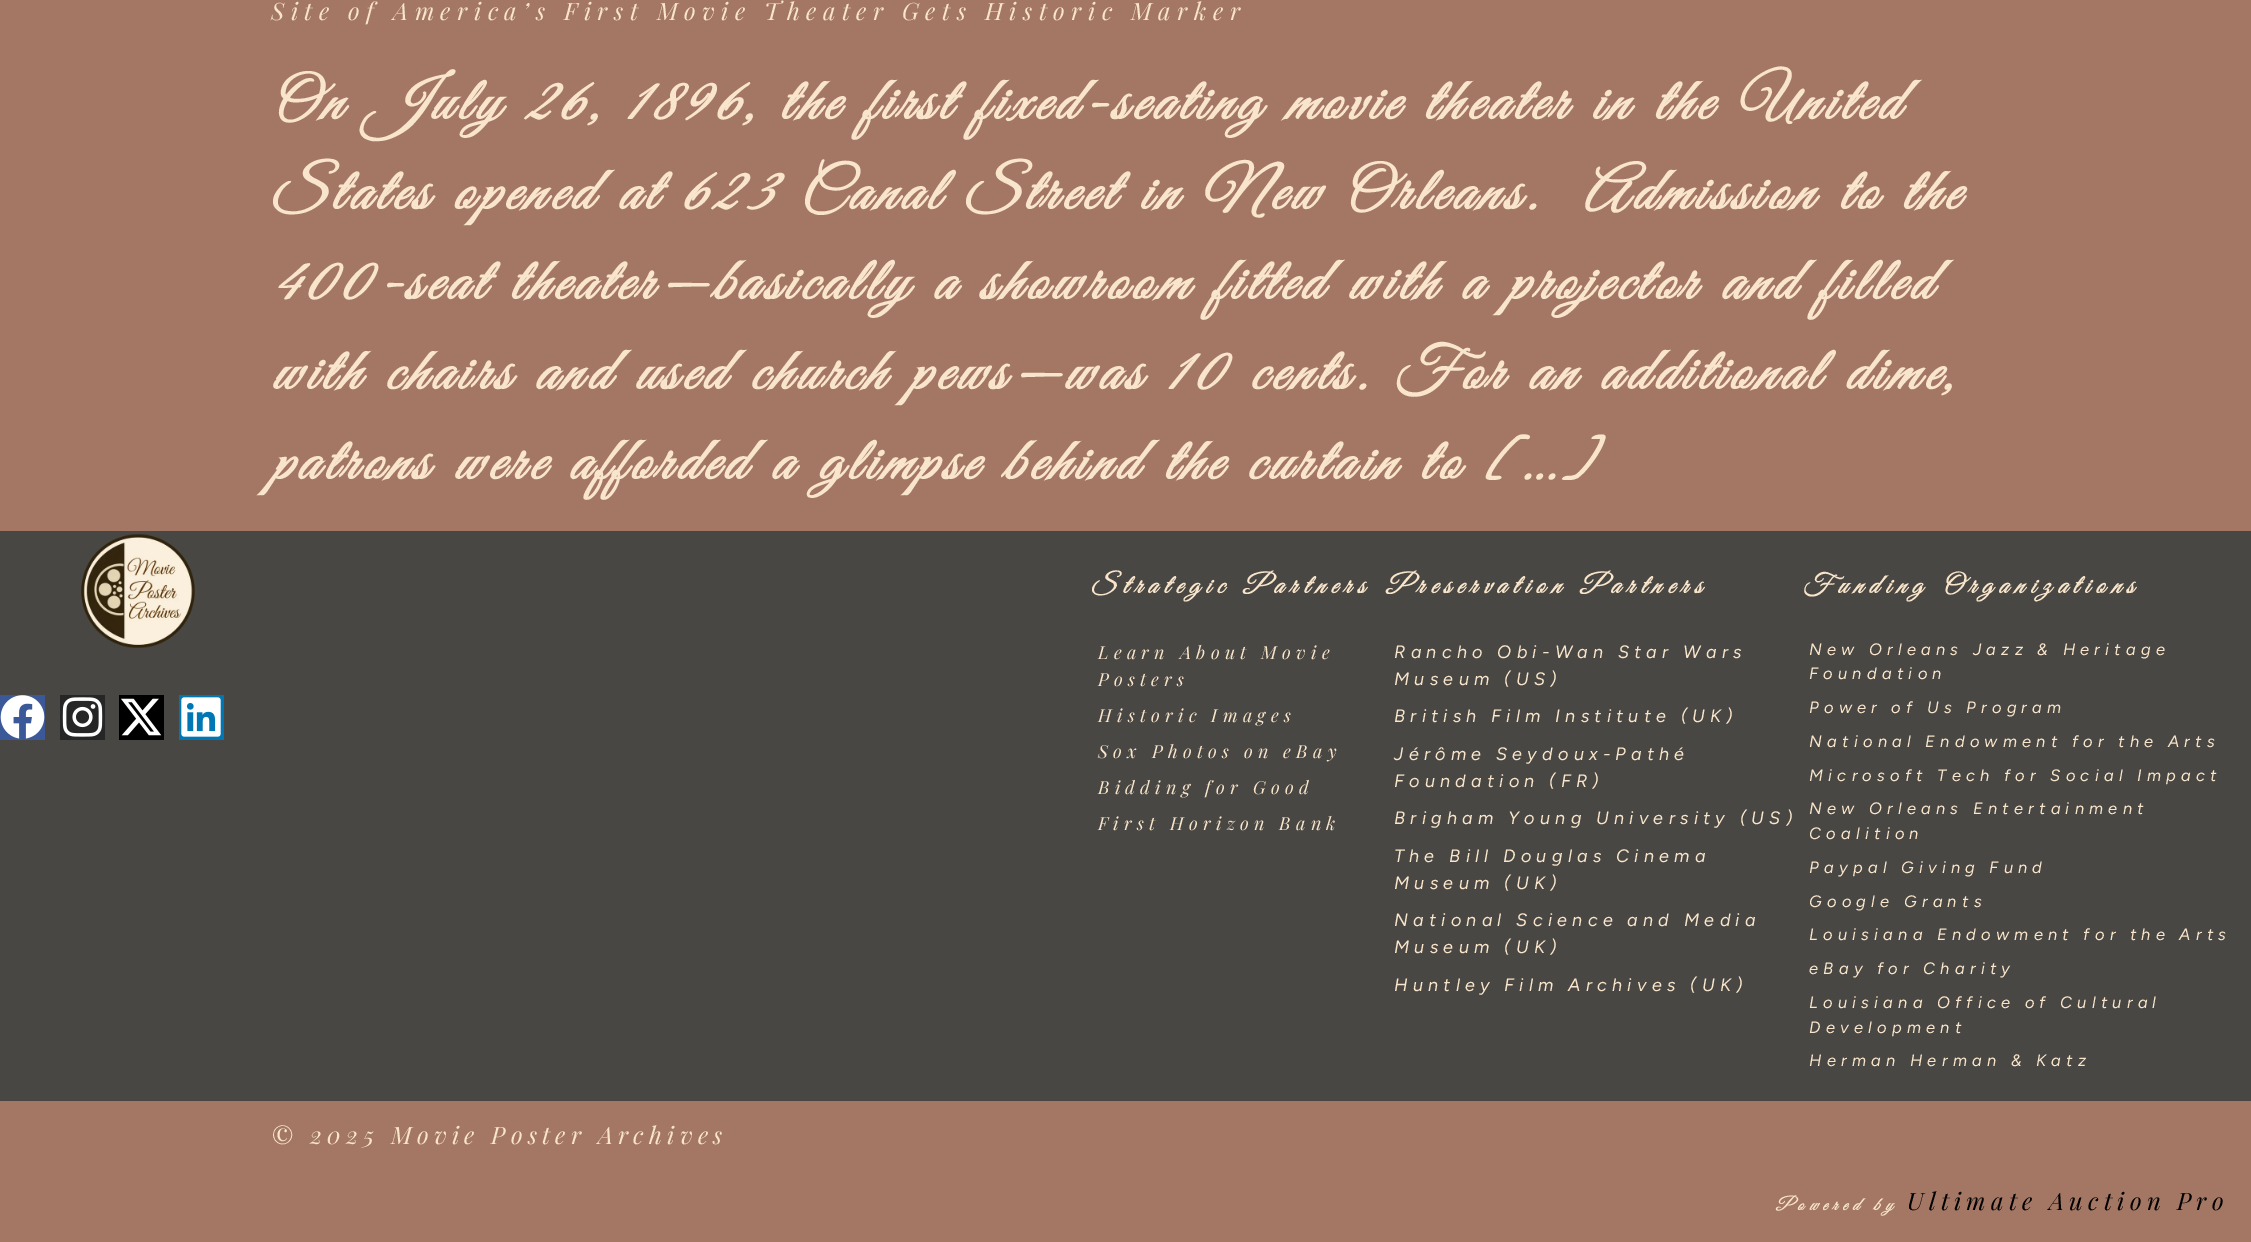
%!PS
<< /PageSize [2251 1242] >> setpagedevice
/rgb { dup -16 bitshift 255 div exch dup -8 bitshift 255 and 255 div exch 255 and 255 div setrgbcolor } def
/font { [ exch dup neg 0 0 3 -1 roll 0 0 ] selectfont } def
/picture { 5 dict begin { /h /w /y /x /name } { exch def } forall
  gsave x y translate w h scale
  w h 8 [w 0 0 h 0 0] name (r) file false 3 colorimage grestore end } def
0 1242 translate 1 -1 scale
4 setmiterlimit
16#A47764 rgb
0 0 2251 1242 rectfill
/PlayfairDisplay-Italic 24 font
16#F8E5CB rgb
271 20 moveto 6.45 0 (Site of America’s First Movie Theater Gets Historic Marker) ashow
/GreatVibes-BoldItalic 60 font
271 119 moveto 5.25 0 (On July 26, 1896, the first fixed-seating movie theater in the United) ashow
271 209 moveto 5.25 0 (States opened at 623 Canal Street in New Orleans.  Admission to the) ashow
271 299 moveto 5.25 0 (400-seat theater—basically a showroom fitted with a projector and filled) ashow
271 389 moveto 5.25 0 (with chairs and used church pews—was 10 cents. For an additional dime,) ashow
271 479 moveto 5.25 0 (patrons were afforded a glimpse behind the curtain to […]) ashow
16#494743 rgb
0 531 2251 570 rectfill
(pic1.raw) 81 534 114 114 picture
16#3B5998 rgb
0 695 45 45 rectfill
(pic2.raw) 0 695 45 44 picture
16#262626 rgb
60 695 45 45 rectfill
(pic3.raw) 62 697 41 40 picture
16#000000 rgb
119 695 45 45 rectfill
(pic4.raw) 121 698 41 38 picture
16#0077B5 rgb
179 695 45 45 rectfill
(pic5.raw) 181 697 40 40 picture
/GreatVibes-BoldItalic 27 font
16#F8E5CB rgb
1091 593 moveto 6.45 0 (Strategic Partners) ashow
/PlayfairDisplay-Italic 18 font
1098 659 moveto 5.25 0 (Learn About Movie) ashow
1098 686 moveto 5.25 0 (Posters) ashow
1098 722 moveto 5.25 0 (Historic Images) ashow
1098 758 moveto 5.25 0 (Sox Photos on eBay) ashow
1098 794 moveto 5.25 0 (Bidding for Good) ashow
1098 830 moveto 5.25 0 (First Horizon Bank) ashow
/GreatVibes-BoldItalic 27 font
1386 593 moveto 6.45 0 (Preservation Partners) ashow
/Figtree-Italic 18 font
1394 658 moveto 5.25 0 (Rancho Obi-Wan Star Wars) ashow
1394 685 moveto 5.25 0 (Museum \(US\)) ashow
1394 722 moveto 5.25 0 (British Film Institute \(UK\)) ashow
1394 760 moveto 5.25 0 (Jérôme Seydoux-Pathé) ashow
1394 787 moveto 5.25 0 (Foundation \(FR\)) ashow
1394 824 moveto 5.25 0 (Brigham Young University \(US\)) ashow
1394 862 moveto 5.25 0 (The Bill Douglas Cinema) ashow
1394 889 moveto 5.25 0 (Museum \(UK\)) ashow
1394 926 moveto 5.25 0 (National Science and Media) ashow
1394 953 moveto 5.25 0 (Museum \(UK\)) ashow
1394 991 moveto 5.25 0 (Huntley Film Archives \(UK\)) ashow
/GreatVibes-BoldItalic 27 font
1802 593 moveto 6.45 0 (Funding Organizations) ashow
/Figtree-Italic 16.5 font
1809 655 moveto 5.25 0 (New Orleans Jazz & Heritage) ashow
1809 679 moveto 5.25 0 (Foundation) ashow
1809 713 moveto 5.25 0 (Power of Us Program) ashow
1809 747 moveto 5.25 0 (National Endowment for the Arts) ashow
1809 781 moveto 5.25 0 (Microsoft Tech for Social Impact) ashow
1809 814 moveto 5.25 0 (New Orleans Entertainment) ashow
1809 839 moveto 5.25 0 (Coalition) ashow
1809 873 moveto 5.25 0 (Paypal Giving Fund) ashow
1809 907 moveto 5.25 0 (Google Grants) ashow
1809 940 moveto 5.25 0 (Louisiana Endowment for the Arts) ashow
1809 974 moveto 5.25 0 (eBay for Charity) ashow
1809 1008 moveto 5.25 0 (Louisiana Office of Cultural) ashow
1809 1033 moveto 5.25 0 (Development) ashow
1809 1066 moveto 5.25 0 (Herman Herman & Katz) ashow
/PlayfairDisplay-Italic 24 font
271 1144 moveto 5.25 0 (© 2025 Movie Poster Archives) ashow
/GreatVibes-BoldItalic 18 font
1776 1210 moveto 5.25 0 (Powered by) ashow
/PlayfairDisplay-Italic 24 font
16#000000 rgb
1907 1210 moveto 5.25 0 (Ultimate Auction Pro) ashow
showpage
